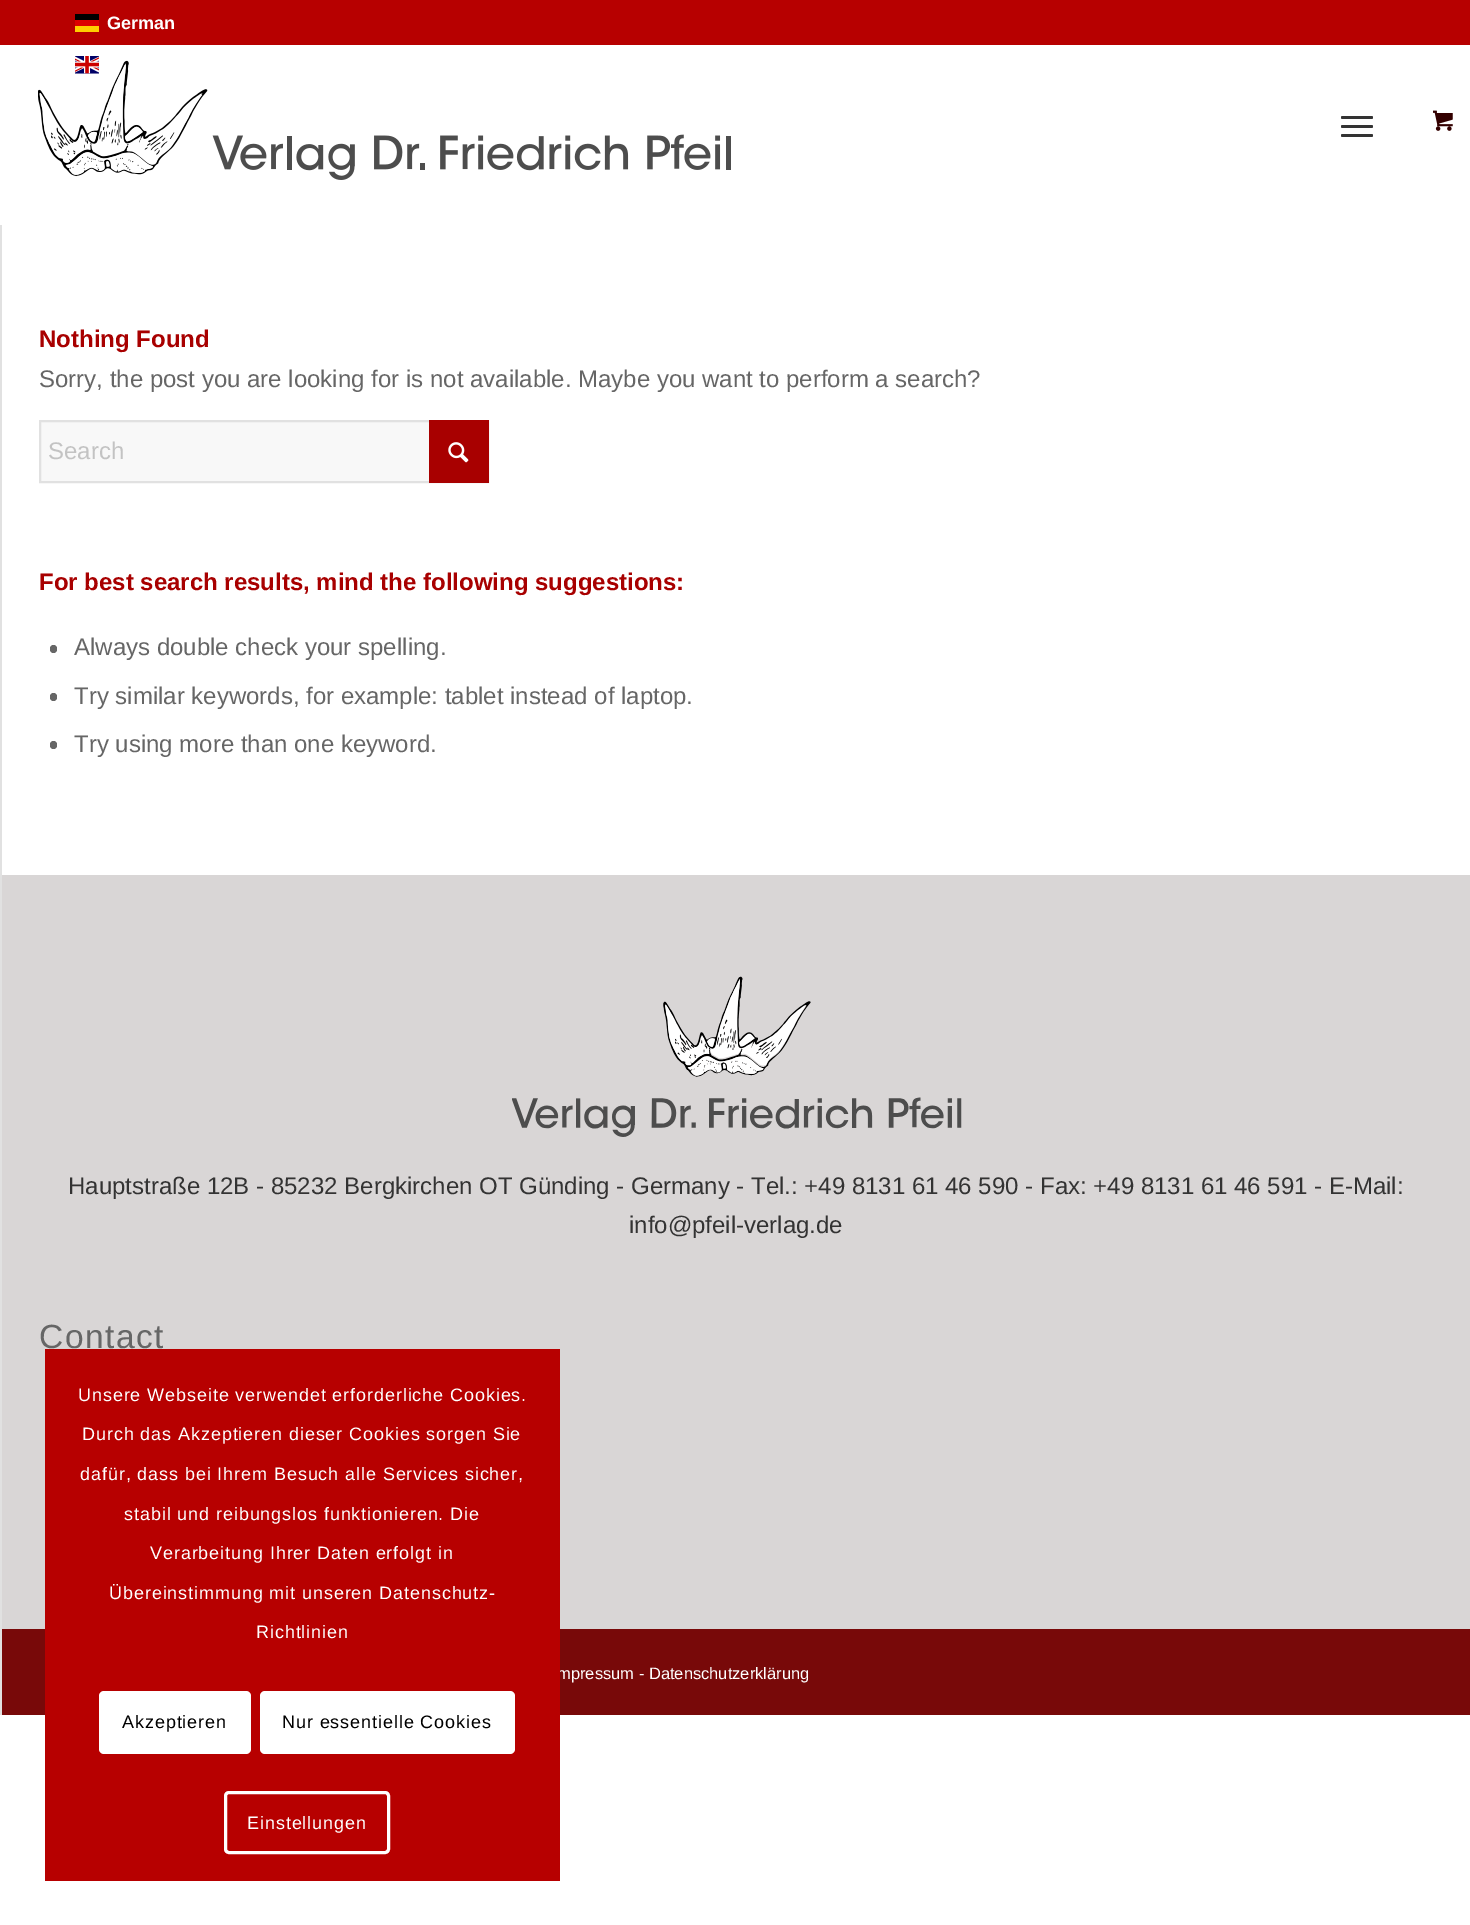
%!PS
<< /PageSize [1470 1925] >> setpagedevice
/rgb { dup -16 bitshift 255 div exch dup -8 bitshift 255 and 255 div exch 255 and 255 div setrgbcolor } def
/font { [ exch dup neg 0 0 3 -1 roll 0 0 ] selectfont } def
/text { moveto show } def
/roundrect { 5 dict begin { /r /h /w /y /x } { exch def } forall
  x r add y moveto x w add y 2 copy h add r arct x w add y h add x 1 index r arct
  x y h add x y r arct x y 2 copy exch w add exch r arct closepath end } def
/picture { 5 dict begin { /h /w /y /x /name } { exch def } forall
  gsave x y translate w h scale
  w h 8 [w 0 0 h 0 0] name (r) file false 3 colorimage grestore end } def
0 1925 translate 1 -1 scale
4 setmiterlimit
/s1 { /LiberationSans-Bold 18 font 16#FFFFFF rgb } def
/s2 { /LiberationSans-Bold 24 font 16#A80000 rgb } def
/s3 { /LiberationSans-Regular 24 font 16#666666 rgb } def
/s4 { /LiberationSans-Regular 24 font 16#C3C3C3 rgb } def
/s5 { /LiberationSans-Regular 24 font 16#333333 rgb } def
/s6 { /LiberationSans-Regular 16.5 font 16#FFFFFF rgb } def
16#FFFFFF rgb
0 0 1470 1925 rectfill
16#B70000 rgb
0 0 1470 45 rectfill
16#FFCE00 rgb
75 26 24 6 rectfill
16#000000 rgb
75 14 24 6 rectfill
16#DD0000 rgb
75 20 24 6 rectfill
s1
(German) 107 29 text
(pic2.raw) 38 60 693 120 picture
(pic1.raw) 75 56 24 18 picture
16#333333 rgb
1341 125 32 3 1.5 roundrect fill
1341 116 32 3 1.5 roundrect fill
1341 134 32 3 1.5 roundrect fill
(pic3.raw) 1433 110 20 21 picture
16#E1E1E1 rgb
0 225 2 1490 rectfill
s2
(Nothing Found) 39 347 text
s3
(Sorry, the post you are looking for is not available. Maybe you want to perform a search?) 39 387 text
16#F8F8F8 rgb
41 422 388 59 rectfill
16#E1E1E1 rgb
2 setlinewidth
40 421 448 61 rectstroke
s4
(Search) 48 459 text
16#A80000 rgb
429 420 60 63 rectfill
(pic4.raw) 448 442 21 21 picture
s2
(For best search results, mind the following suggestions:) 39 590 text
16#666666 rgb
50 645 7 8 3.5 roundrect fill
s3
(Always double check your spelling.) 74 655 text
50 693 7 8 3.5 roundrect fill
(Try similar keywords, for example: tablet instead of laptop.) 74 704 text
50 741 7 8 3.5 roundrect fill
(Try using more than one keyword.) 74 752 text
16#D9D6D6 rgb
2 875 1468 754 rectfill
(pic5.raw) 512 976 450 161 picture
s5
(Hauptstraße 12B - 85232 Bergkirchen OT Günding - Germany - Tel.: +49 8131 61 46 590 - Fax: +49 8131 61 46 591 - E-Mail:) 68 1194 text
(info@pfeil-verlag.de) 629 1233 text
/LiberationSans-Regular 33.5 font
16#666666 rgb
39 1348 moveto 1.5 0 (Contact) ashow
16#780909 rgb
2 1629 1468 86 rectfill
s6
(mpressum - Datenschutzerklärung) 557 1679 text
16#B70000 rgb
45 1349 515 532 rectfill
/LiberationSans-Regular 18 font
16#FFFFFF rgb
78 1401 moveto 0.9 0 (Unsere Webseite verwendet erforderliche Cookies.) ashow
82 1440 moveto 0.9 0 (Durch das Akzeptieren dieser Cookies sorgen Sie) ashow
80 1480 moveto 0.9 0 (dafür, dass bei Ihrem Besuch alle Services sicher,) ashow
124 1520 moveto 0.9 0 (stabil und reibungslos funktionieren. Die) ashow
150 1559 moveto 0.9 0 (Verarbeitung Ihrer Daten erfolgt in) ashow
109 1599 moveto 0.9 0 (Übereinstimmung mit unseren Datenschutz-) ashow
256 1638 moveto 0.9 0 (Richtlinien) ashow
99 1691 152 63 5 roundrect fill
16#000000 rgb
122 1728 moveto 0.9 0 (Akzeptieren) ashow
16#FFFFFF rgb
260 1691 255 63 5 roundrect fill
16#000000 rgb
282 1728 moveto 0.9 0 (Nur essentielle Cookies) ashow
16#FFFFFF rgb
3 setlinewidth
225.5 1792.5 163 60 3.5 roundrect stroke
247 1829 moveto 0.9 0 (Einstellungen) ashow
showpage
